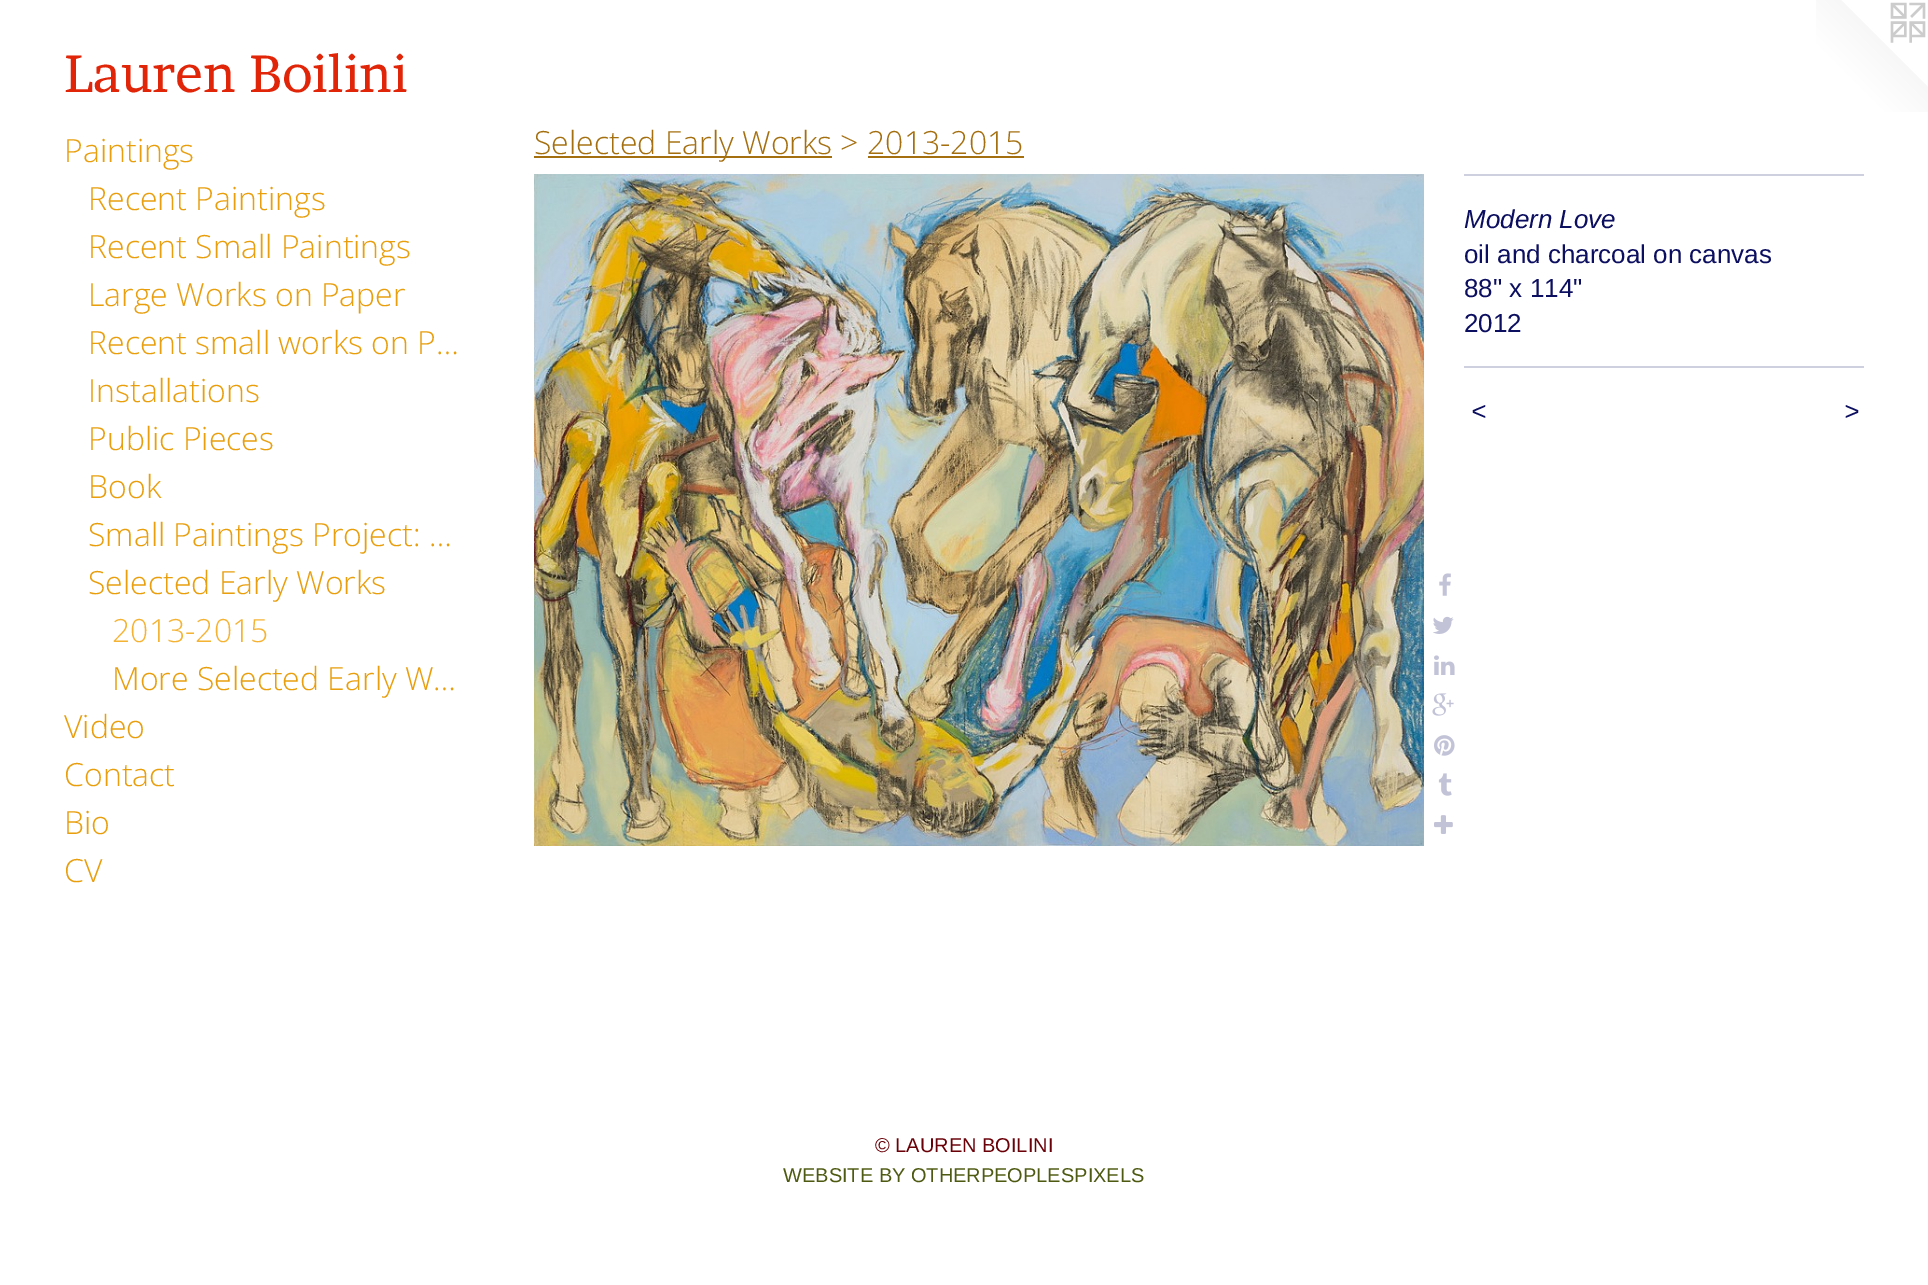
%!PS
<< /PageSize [1928 1285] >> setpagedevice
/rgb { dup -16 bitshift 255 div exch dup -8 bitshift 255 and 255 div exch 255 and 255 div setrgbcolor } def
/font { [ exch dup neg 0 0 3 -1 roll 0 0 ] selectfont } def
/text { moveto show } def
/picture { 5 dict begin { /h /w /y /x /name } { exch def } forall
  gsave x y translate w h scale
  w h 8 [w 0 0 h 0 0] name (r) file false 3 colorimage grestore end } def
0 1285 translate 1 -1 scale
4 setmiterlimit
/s1 { /Brawler-Regular 52 font 16#E12509 rgb } def
/s2 { /OpenSans-Light 32 font 16#E99E0C rgb } def
/s3 { /OpenSans-Light 32 font 16#F5B333 rgb } def
/s4 { /OpenSans-Light 32 font 16#A46F0E rgb } def
/s5 { /LiberationSans-Italic 26 font 16#0C0F5F rgb } def
/s6 { /LiberationSans-Regular 26 font 16#0C0F5F rgb } def
/s7 { /LiberationSans-Regular 20 font 16#6A0108 rgb } def
/s8 { /LiberationSans-Regular 20 font 16#4E5A11 rgb } def
16#FFFFFF rgb
0 0 1928 1285 rectfill
s1
(Lauren Boilini) 64 92 text
(pic1.raw) 1816 0 112 112 picture
s2
(Paintings) 64 162 text
(Recent Paintings) 88 210 text
(Recent Small Paintings) 88 258 text
(Large Works on Paper) 88 306 text
(Recent small works on P…) 88 354 text
(Installations) 88 402 text
(Public Pieces) 88 450 text
(Book) 88 498 text
(Small Paintings Project: …) 88 546 text
(Selected Early Works) 88 594 text
s3
(2013-2015) 112 642 text
s2
(More Selected Early W…) 112 690 text
(Video) 64 738 text
(Contact) 64 786 text
(Bio) 64 834 text
(CV) 64 882 text
16#A46F0E rgb
534 156 298 2 rectfill
(Selected Early Works > 2013-2015) 534 154 text
868 156 156 2 rectfill
(pic2.raw) 534 174 890 672 picture
(pic3.raw) 1439 573 12 23 picture
(pic4.raw) 1433 616 21 18 picture
(pic5.raw) 1434 655 21 20 picture
(pic6.raw) 1432 693 22 23 picture
(pic7.raw) 1434 735 21 21 picture
(pic8.raw) 1438 773 14 23 picture
(pic9.raw) 1434 815 19 19 picture
16#CECFDF rgb
1464 174 400 2 rectfill
s5
(Modern Love) 1464 228 text
s6
(oil and charcoal on canvas) 1464 263 text
(88" x 114") 1464 297 text
(2012) 1464 332 text
16#CECFDF rgb
1464 366 400 2 rectfill
/LiberationSans-Italic 26 font
16#0C0F5F rgb
1471 420 moveto 2 0 (<) ashow
1844 420 moveto 2 0 (>) ashow
s7
(© LAUREN BOILINI) 875 1152 text
s8
(WEBSITE BY OTHERPEOPLESPIXELS) 783 1182 text
showpage
